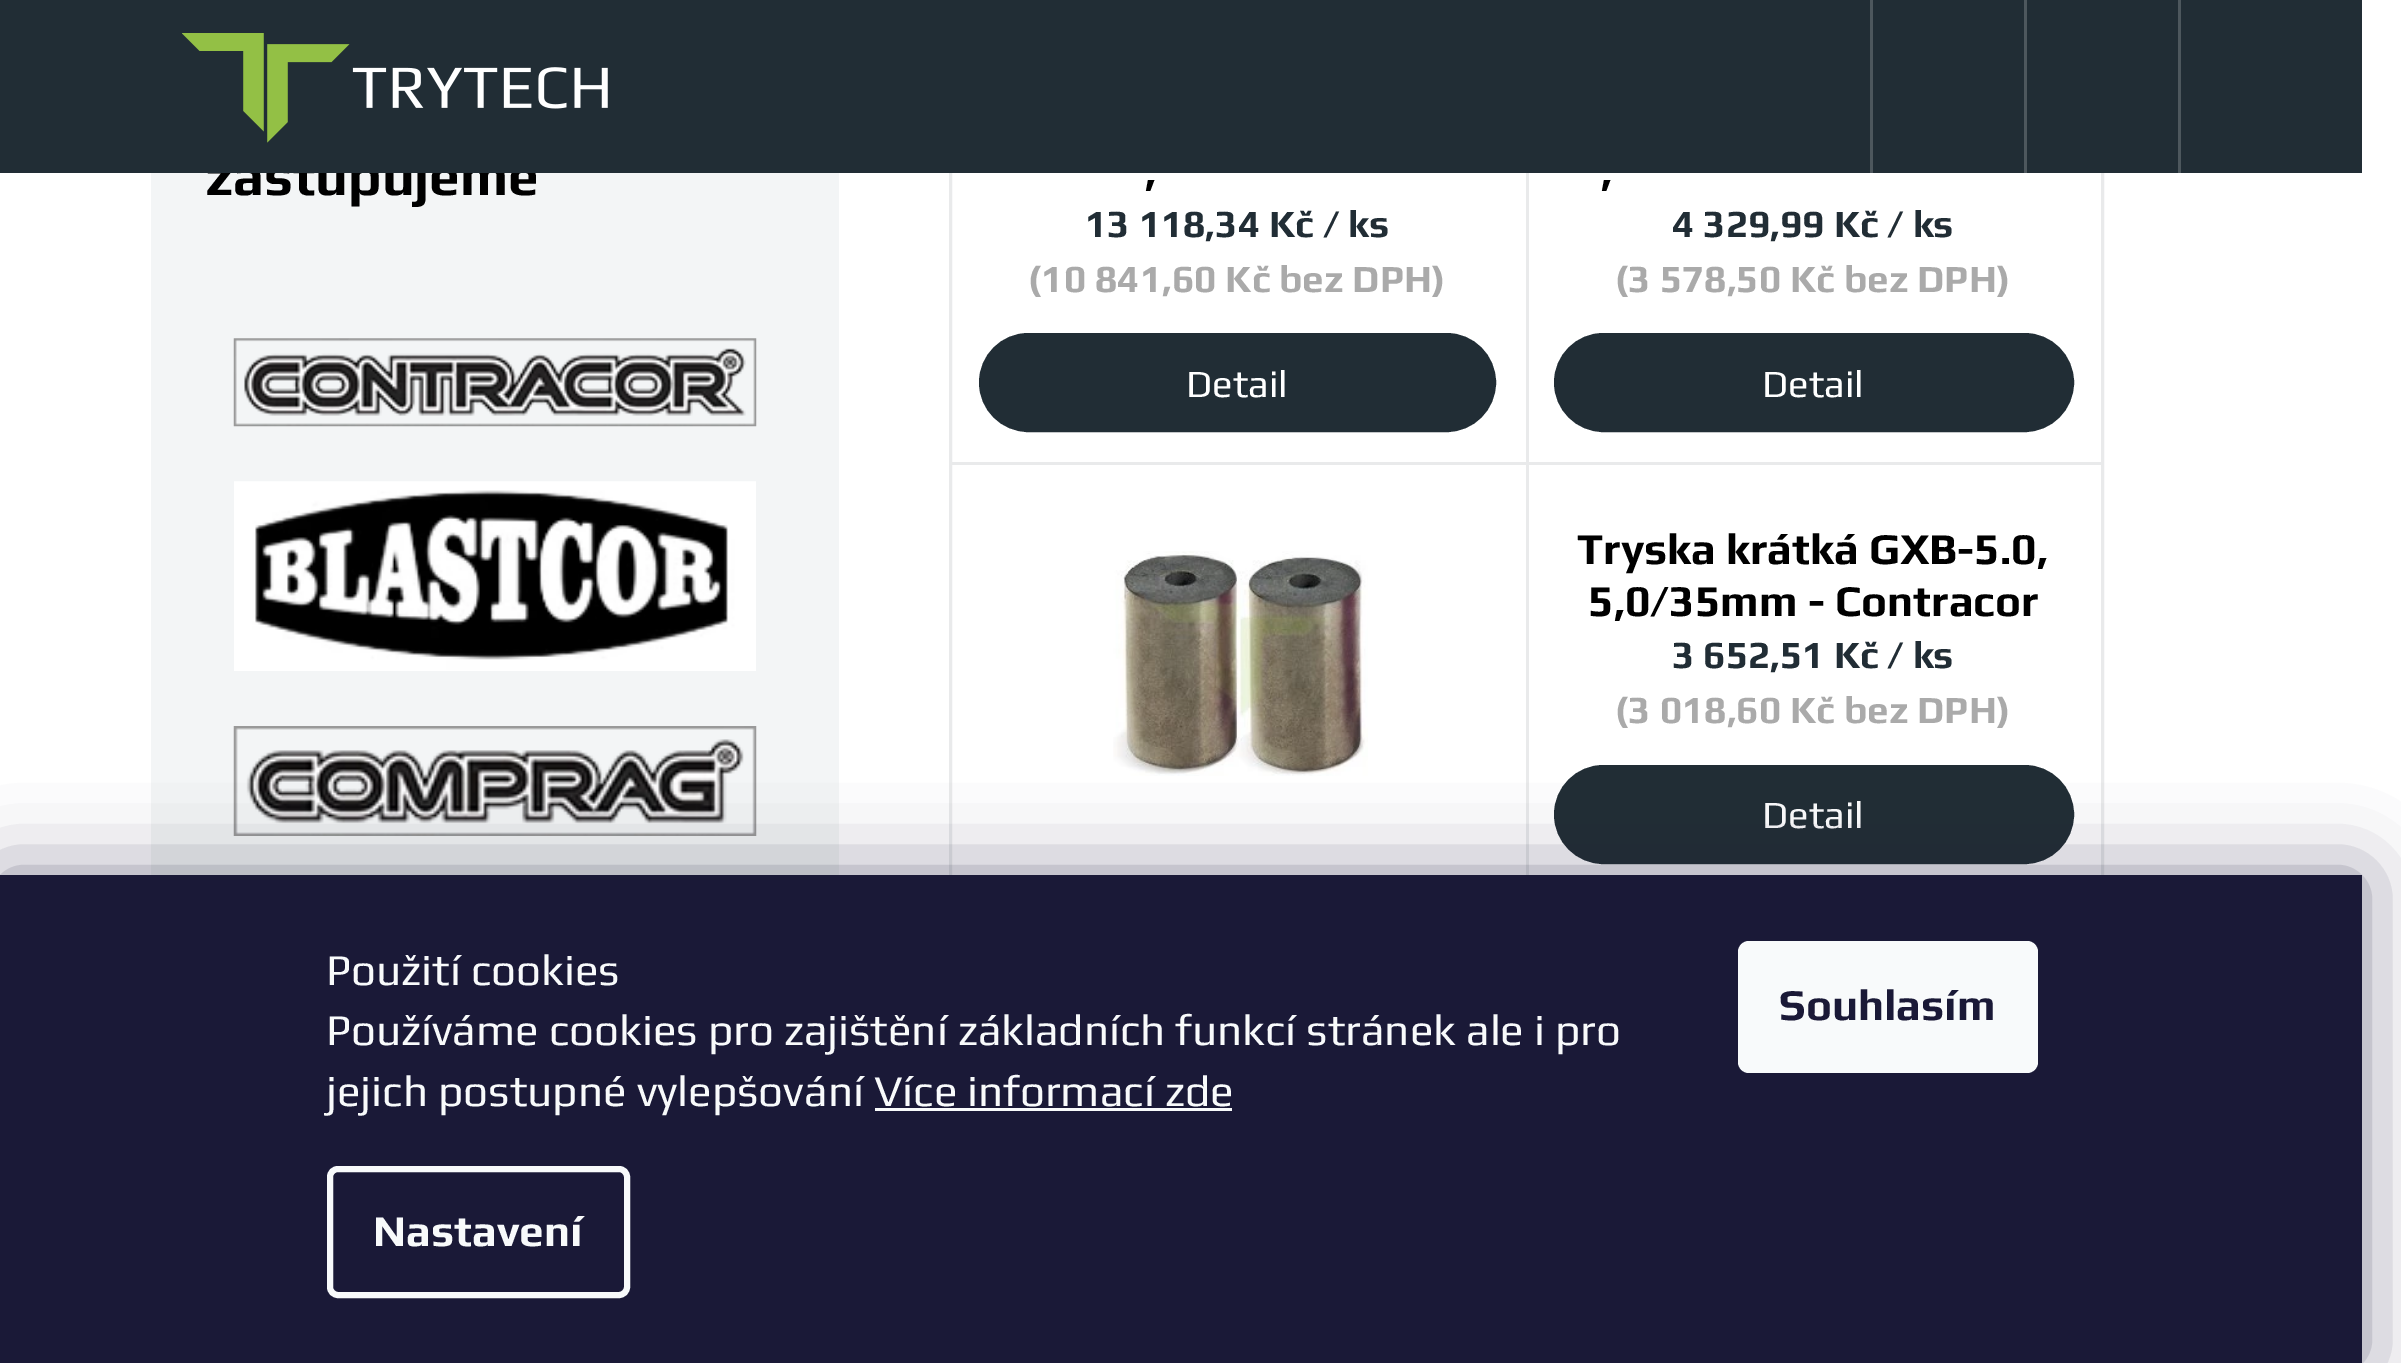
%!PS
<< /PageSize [2401 1363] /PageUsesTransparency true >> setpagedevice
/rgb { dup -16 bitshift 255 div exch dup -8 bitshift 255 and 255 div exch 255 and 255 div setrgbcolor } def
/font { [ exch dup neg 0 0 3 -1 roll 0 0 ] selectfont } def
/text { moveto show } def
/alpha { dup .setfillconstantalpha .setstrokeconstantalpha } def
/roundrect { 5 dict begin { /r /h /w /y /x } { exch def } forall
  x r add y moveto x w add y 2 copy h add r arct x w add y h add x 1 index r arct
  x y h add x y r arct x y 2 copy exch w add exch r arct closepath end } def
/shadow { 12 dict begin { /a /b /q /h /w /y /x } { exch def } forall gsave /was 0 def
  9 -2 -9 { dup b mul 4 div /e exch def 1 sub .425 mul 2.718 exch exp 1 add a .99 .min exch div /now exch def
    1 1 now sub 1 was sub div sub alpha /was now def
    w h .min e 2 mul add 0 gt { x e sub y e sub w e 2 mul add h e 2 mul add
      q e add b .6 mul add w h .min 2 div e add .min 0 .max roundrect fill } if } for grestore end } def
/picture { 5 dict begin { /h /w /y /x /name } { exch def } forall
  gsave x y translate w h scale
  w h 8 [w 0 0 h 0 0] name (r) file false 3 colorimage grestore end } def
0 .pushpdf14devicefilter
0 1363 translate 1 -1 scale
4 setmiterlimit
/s1 { /Play-Bold 55 font 16#000000 rgb } def
/s2 { /Play-Bold 44 font 16#000000 rgb } def
/s3 { /Play-Bold 38.5 font 16#212D35 rgb } def
/s4 { /Play-Bold 38.5 font 16#AAAAAA rgb } def
/s5 { /Play-Regular 38.5 font 16#FFFFFF rgb } def
/s6 { /Play-Regular 44 font 16#F8FAFB rgb } def
/s7 { /Play-Bold 44 font 16#F8FAFB rgb } def
/s8 { /Play-Bold 44 font 16#1A1937 rgb } def
16#FFFFFF rgb
0 0 2401 1363 rectfill
16#F3F5F6 rgb
151 173 688 702 rectfill
s1
(zastupujeme) 205 195 text
16#E9EAEB rgb
3 setlinewidth
950.5 -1.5 1152 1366 rectstroke
16#212D35 rgb
0 0 2362 173 rectfill
(pic1.raw) 182 33 426 110 picture
16#4D575D rgb
1870 0 3 173 rectfill
2024 0 3 173 rectfill
2178 0 3 173 rectfill
(pic2.raw) 233 338 524 89 picture
(pic3.raw) 234 481 522 190 picture
(pic4.raw) 233 726 524 110 picture
s2
(,) 1145 186 text
s3
(13 118,34 Kč / ks) 1085 237 text
s4
(\(10 841,60 Kč bez DPH\)) 1028 292 text
16#212D35 rgb
980.5 334.5 514 96 48 roundrect gsave fill grestore
stroke
s5
(Detail) 1186 397 text
16#E9EAEB rgb
1526 173 3 289 rectfill
s2
(,) 1601 186 text
s3
(4 329,99 Kč / ks) 1672 237 text
s4
(\(3 578,50 Kč bez DPH\)) 1615 292 text
16#212D35 rgb
1555.5 334.5 517 96 48 roundrect gsave fill grestore
stroke
s5
(Detail) 1762 397 text
16#E9EAEB rgb
952 462 1149 3 rectfill
(pic5.raw) 1113 551 255 225 picture
1526 462 3 413 rectfill
s2
(Tryska krátká GXB-5.0,) 1577 564 text
(5,0/35mm - Contracor) 1588 616 text
s3
(3 652,51 Kč / ks) 1672 668 text
s4
(\(3 018,60 Kč bez DPH\)) 1615 723 text
16#212D35 rgb
1555.5 766.5 517 96 48 roundrect gsave fill grestore
stroke
s5
(Detail) 1762 828 text
16#1B1939 rgb
0 875 2362 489 0 41 0.5 shadow
16#1A1937 rgb
0 875 2362 488 rectfill
s6
(Použití cookies) 326 985 text
(Používáme cookies pro zajištění základních funkcí stránek ale i pro) 326 1045 text
(jejich postupné vylepšování Více informací zde) 326 1106 text
875 1108 357 3 rectfill
6 setlinewidth
330 1169 297 126 8 roundrect stroke
s7
(Nastavení) 373 1246 text
1738 941 300 132 11 roundrect fill
s8
(Souhlasím) 1779 1020 text
.poppdf14devicefilter showpage
